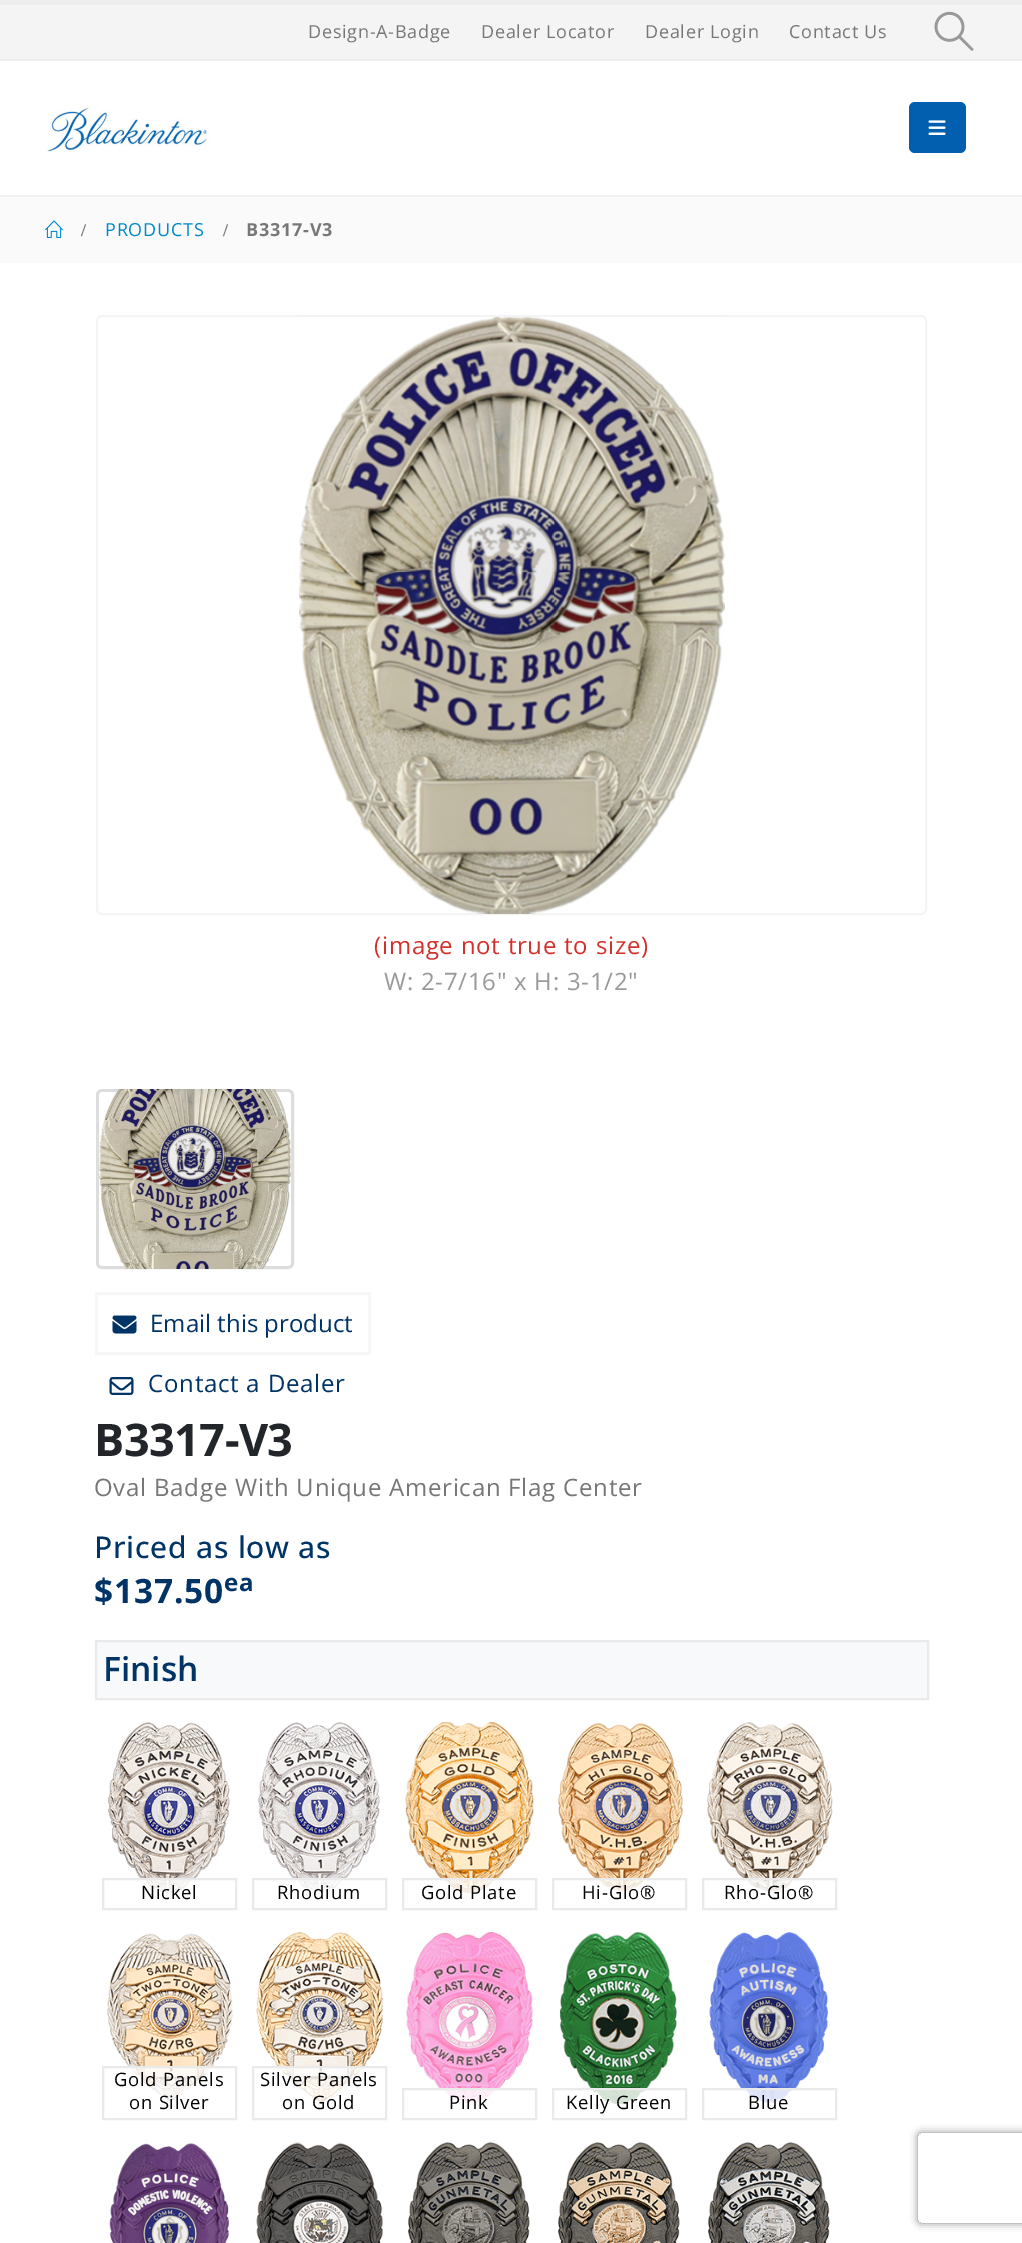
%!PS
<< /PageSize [1022 2243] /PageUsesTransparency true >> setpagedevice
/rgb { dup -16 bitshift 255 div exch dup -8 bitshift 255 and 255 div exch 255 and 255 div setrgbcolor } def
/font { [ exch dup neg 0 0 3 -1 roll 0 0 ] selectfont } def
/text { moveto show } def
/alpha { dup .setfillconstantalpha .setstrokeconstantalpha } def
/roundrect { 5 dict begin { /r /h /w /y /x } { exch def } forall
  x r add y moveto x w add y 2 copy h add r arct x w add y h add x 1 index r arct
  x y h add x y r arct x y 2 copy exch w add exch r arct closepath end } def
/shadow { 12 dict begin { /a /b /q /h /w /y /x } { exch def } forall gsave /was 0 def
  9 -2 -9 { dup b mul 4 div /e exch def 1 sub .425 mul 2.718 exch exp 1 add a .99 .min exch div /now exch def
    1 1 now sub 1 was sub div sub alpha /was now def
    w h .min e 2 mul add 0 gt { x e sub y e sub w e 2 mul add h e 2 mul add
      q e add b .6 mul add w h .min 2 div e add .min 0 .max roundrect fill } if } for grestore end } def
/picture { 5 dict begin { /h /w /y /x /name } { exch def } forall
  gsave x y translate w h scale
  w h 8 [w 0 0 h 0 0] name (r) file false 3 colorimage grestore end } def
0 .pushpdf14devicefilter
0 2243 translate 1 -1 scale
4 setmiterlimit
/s1 { /OpenSans-Regular 24 font 16#003366 rgb } def
/s2 { /OpenSans-SemiBold 33.5 font 16#003366 rgb } def
16#FFFFFF rgb
0 0 1022 2243 rectfill
16#EDEDED rgb
0 0 1022 5 rectfill
16#F4F4F4 rgb
0 5 1022 54 rectfill
16#EDEDED rgb
0 59 1022 2 rectfill
/OpenSans-Regular 18 font
16#777777 rgb
308 38 moveto 0.75 0 (Design-A-Badge) ashow
481 38 moveto 0.75 0 (Dealer Locator) ashow
645 38 moveto 0.75 0 (Dealer Login) ashow
789 38 moveto 0.75 0 (Contact Us) ashow
(pic1.raw) 934 11 40 40 picture
(pic2.raw) 45 106 164 46 picture
16#025FAF rgb
909 102 57 51 6 roundrect fill
(pic3.raw) 928 120 18 15 picture
16#FAFAFA rgb
0 197 1022 66 rectfill
16#F1F1F1 rgb
0 195 1022 2 rectfill
(pic4.raw) 45 220 18 18 picture
/LiberationSerif-Bold 18 font
16#777777 rgb
81 236 moveto 0.75 0 (/) ashow
/OpenSans-Regular 18 font
16#0088CC rgb
105 236 moveto 0.75 0 (PRODUCTS) ashow
/LiberationSerif-Bold 18 font
16#777777 rgb
223 236 moveto 0.75 0 (/) ashow
/OpenSans-Bold 18 font
246 236 moveto 0.75 0 (B3317-V3) ashow
16#F4F4F4 rgb
2 setlinewidth
97 316 829 598 5 roundrect stroke
(pic5.raw) 299 317 426 597 picture
/OpenSans-Regular 24 font
16#D2322D rgb
374 954 moveto 0.75 0 (\(image not true to size\)) ashow
16#999999 rgb
384 990 moveto 0.75 0 (W: 2-7/16" x H: 3-1/2") ashow
16#DDDDDD rgb
3 setlinewidth
97.5 1090.5 195 177 4.5 roundrect stroke
(pic6.raw) 99 1089 192 180 picture
16#F7F7F7 rgb
96.5 1293.5 273 60 rectstroke
(pic7.raw) 112 1315 25 19 picture
s1
(Email this product) 150 1332 text
(pic8.raw) 109 1377 25 18 picture
148 1392 moveto 0.75 0 (Contact a Dealer) ashow
/OpenSans-Bold 45 font
16#222529 rgb
94 1456 moveto -0.5 0 (B3317-V3) ashow
/OpenSans-Regular 24 font
16#777777 rgb
94 1496 moveto 0.75 0 (Oval Badge With Unique American Flag Center) ashow
/OpenSans-Medium 30 font
16#003366 rgb
94 1558 moveto 0.75 0 (Priced as low as) ashow
/OpenSans-Bold 33.5 font
94 1603 moveto 0.75 0 ($137.50) ashow
/OpenSans-Bold 24 font
224 1591 moveto 0.75 0 (ea) ashow
16#F8F9FA rgb
96 1641 moveto 928 1641 lineto 928 1699 lineto 96 1699 lineto closepath gsave fill grestore
16#EAEAEA rgb
2 setlinewidth
stroke
s2
(Finish) 103 1681 text
(pic9.raw) 108 1722 122 171 picture
0.8 alpha
16#FFFFFF rgb
146 1880 46 13 rectfill
1 alpha
16#EAEAEA rgb
103 1879 133 30 rectstroke
/OpenSans-Regular 18.5 font
16#000000 rgb
141 1899 moveto 0.75 0 (Nickel) ashow
(pic10.raw) 258 1722 122 171 picture
0.8 alpha
16#FFFFFF rgb
297 1880 45 13 rectfill
1 alpha
16#EAEAEA rgb
253 1879 133 30 rectstroke
16#000000 rgb
277 1899 moveto 0.75 0 (Rhodium) ashow
(pic11.raw) 405 1722 129 171 picture
0.8 alpha
16#FFFFFF rgb
444 1880 52 13 rectfill
1 alpha
16#EAEAEA rgb
403 1879 133 30 rectstroke
16#000000 rgb
421 1899 moveto 0.75 0 (Gold Plate) ashow
(pic12.raw) 558 1723 125 169 picture
0.8 alpha
16#FFFFFF rgb
599 1880 45 12 rectfill
1 alpha
16#EAEAEA rgb
553 1879 133 30 rectstroke
16#000000 rgb
582 1899 moveto 0.75 0 (Hi-Glo®) ashow
(pic13.raw) 706 1722 127 171 picture
0.8 alpha
16#FFFFFF rgb
747 1880 47 13 rectfill
1 alpha
16#EAEAEA rgb
703 1879 133 30 rectstroke
16#000000 rgb
724 1899 moveto 0.75 0 (Rho-Glo®) ashow
(pic14.raw) 107 1933 126 169 picture
0.8 alpha
16#FFFFFF rgb
131 2068 80 34 rectfill
1 alpha
16#EAEAEA rgb
103 2067 133 52 rectstroke
16#000000 rgb
114 2086 moveto 0.75 0 (Gold Panels) ashow
129 2109 moveto 0.75 0 (on Silver) ashow
(pic15.raw) 256 1932 127 171 picture
0.8 alpha
16#FFFFFF rgb
280 2068 82 35 rectfill
1 alpha
16#EAEAEA rgb
253 2067 133 52 rectstroke
16#000000 rgb
260 2086 moveto 0.75 0 (Silver Panels) ashow
282 2109 moveto 0.75 0 (on Gold) ashow
(pic16.raw) 406 1932 127 171 picture
0.8 alpha
16#FFFFFF rgb
441 2090 56 13 rectfill
1 alpha
16#EAEAEA rgb
403 2089 133 30 rectstroke
16#000000 rgb
449 2109 moveto 0.75 0 (Pink) ashow
(pic17.raw) 560 1932 117 173 picture
0.8 alpha
16#FFFFFF rgb
592 2090 54 15 rectfill
1 alpha
16#EAEAEA rgb
553 2089 133 30 rectstroke
16#000000 rgb
566 2109 moveto 0.75 0 (Kelly Green) ashow
(pic18.raw) 709 1932 119 171 picture
0.8 alpha
16#FFFFFF rgb
743 2090 51 13 rectfill
1 alpha
16#EAEAEA rgb
703 2089 133 30 rectstroke
16#000000 rgb
748 2109 moveto 0.75 0 (Blue) ashow
(pic19.raw) 109 2143 121 100 picture
(pic20.raw) 256 2142 127 101 picture
(pic21.raw) 408 2142 122 101 picture
(pic22.raw) 558 2142 122 101 picture
(pic23.raw) 708 2142 122 101 picture
gsave
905 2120 moveto 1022 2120 lineto 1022 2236 lineto 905 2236 lineto closepath 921 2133 moveto 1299 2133 lineto 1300.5 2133 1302 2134.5 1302 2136 curveto 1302 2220 lineto 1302 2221.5 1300.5 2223 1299 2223 curveto 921 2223 lineto 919.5 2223 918 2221.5 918 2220 curveto 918 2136 lineto 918 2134.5 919.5 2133 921 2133 curveto closepath eoclip newpath
16#808080 rgb
918 2133 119 90 3 4 1 shadow
grestore
.poppdf14devicefilter showpage
